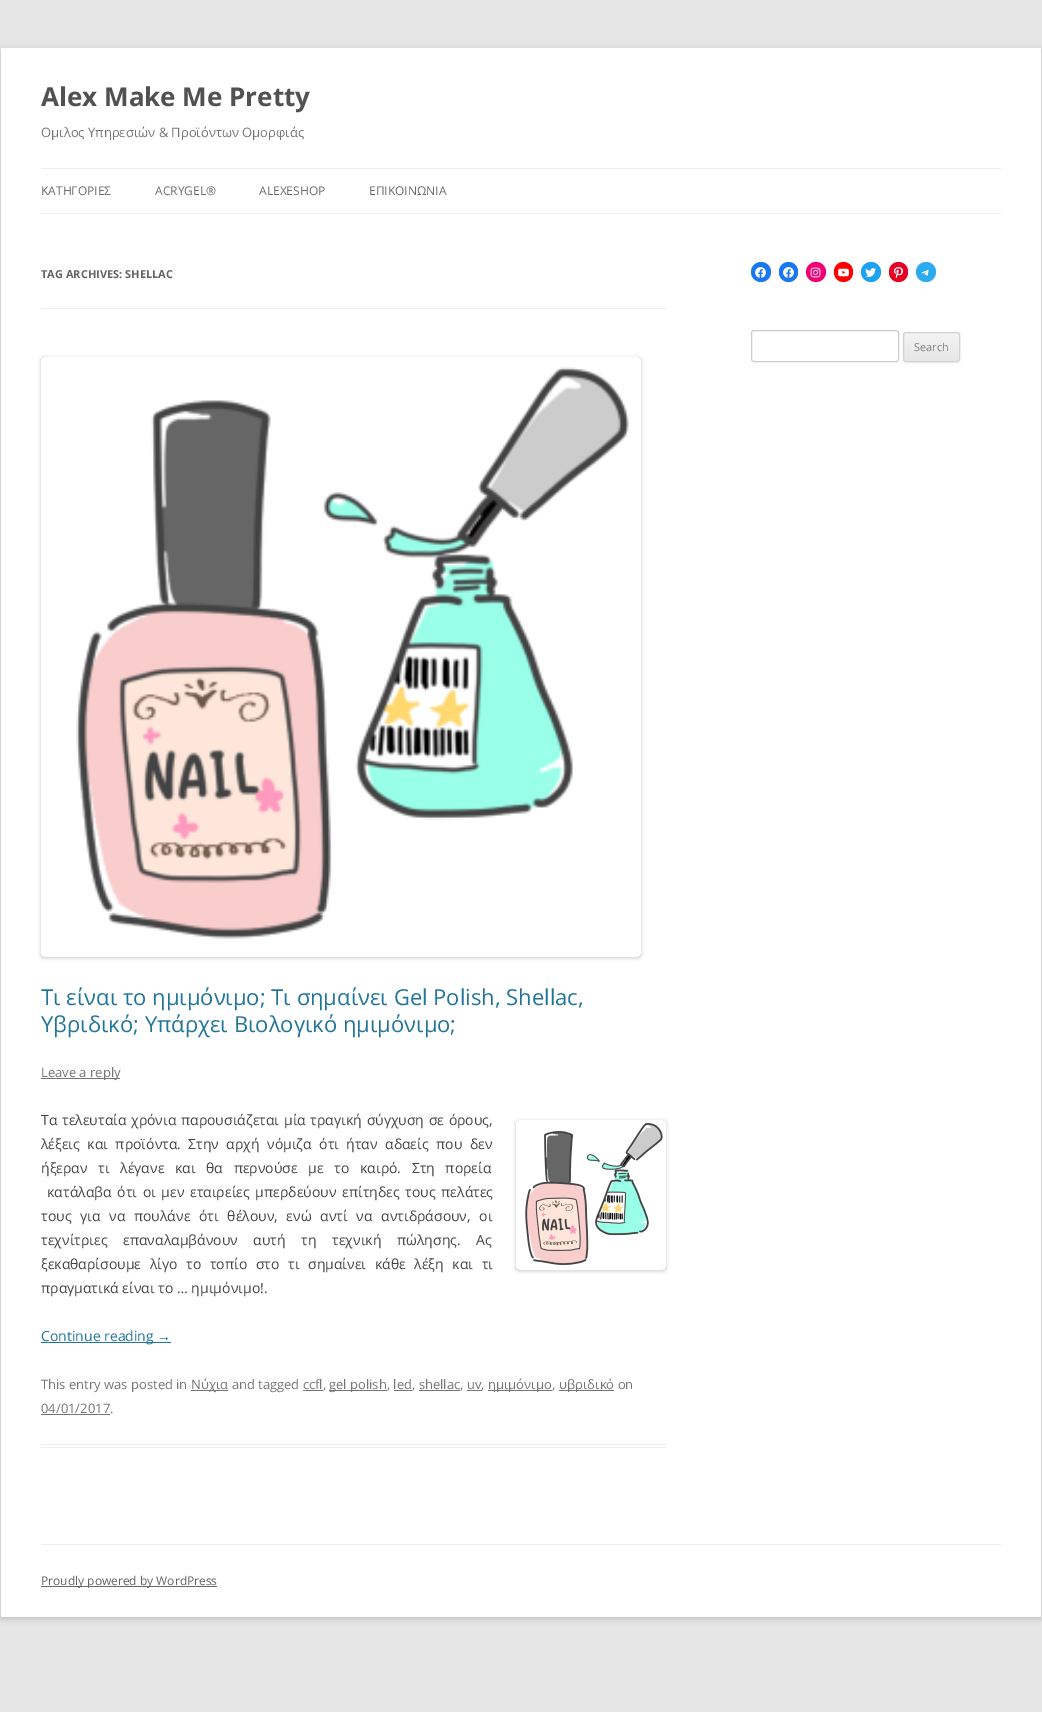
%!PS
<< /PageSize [1042 1712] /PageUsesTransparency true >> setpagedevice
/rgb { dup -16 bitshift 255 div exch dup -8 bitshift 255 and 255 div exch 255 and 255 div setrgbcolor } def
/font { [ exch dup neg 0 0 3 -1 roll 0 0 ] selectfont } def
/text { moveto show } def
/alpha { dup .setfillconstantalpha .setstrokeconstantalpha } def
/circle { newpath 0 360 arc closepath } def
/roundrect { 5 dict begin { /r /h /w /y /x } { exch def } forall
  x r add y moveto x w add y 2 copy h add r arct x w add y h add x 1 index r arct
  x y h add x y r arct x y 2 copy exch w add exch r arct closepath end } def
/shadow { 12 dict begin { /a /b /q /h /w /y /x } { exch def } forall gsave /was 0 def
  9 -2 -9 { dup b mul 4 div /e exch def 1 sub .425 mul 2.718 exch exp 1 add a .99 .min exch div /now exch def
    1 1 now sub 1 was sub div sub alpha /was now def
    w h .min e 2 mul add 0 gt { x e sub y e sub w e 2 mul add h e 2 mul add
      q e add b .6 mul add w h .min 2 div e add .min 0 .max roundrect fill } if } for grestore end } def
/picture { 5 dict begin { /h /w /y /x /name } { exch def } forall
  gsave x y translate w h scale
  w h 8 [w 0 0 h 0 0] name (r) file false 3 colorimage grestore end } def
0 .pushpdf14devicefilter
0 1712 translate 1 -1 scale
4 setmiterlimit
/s1 { /OpenSans-Bold 26 font 16#515151 rgb } def
/s2 { /OpenSans-Regular 13 font 16#757575 rgb } def
/s3 { /OpenSans-Regular 12 font 16#6A6A6A rgb } def
/s4 { /OpenSans-Bold 11 font 16#636363 rgb } def
/s5 { /OpenSans-Regular 22 font 16#21759B rgb } def
/s6 { /OpenSans-Regular 14 font 16#444444 rgb } def
/s7 { /OpenSans-Regular 14 font 16#21759B rgb } def
/s8 { /LiberationSans-Regular 14 font 16#21759B rgb } def
/s9 { /OpenSans-Regular 11 font 16#7C7C7C rgb } def
/s10 { /OpenSans-Regular 12 font 16#636363 rgb } def
16#E6E6E6 rgb
0 0 1042 1712 rectfill
16#646464 rgb
1 50 1040 1569 0 3 0.3 shadow
16#FFFFFF rgb
1 48 1040 1569 rectfill
s1
(Alex Make Me Pretty) 41 106 text
s2
(Ομιλος Υπηρεσιών & Προϊόντων Ομορφιάς) 41 137 text
16#EDEDED rgb
41 168 960 1 rectfill
41 213 960 1 rectfill
s3
(ΚΑΤΗΓΟΡΙΕΣ) 41 195 text
(ACRYGEL®) 155 195 text
(ALEXESHOP) 259 195 text
(ΕΠΙΚΟΙΝΩΝΙΑ) 369 195 text
16#EDEDED rgb
41 308 625 1 rectfill
s4
(TAG ARCHIVES: SHELLAC) 41 278 text
16#EDEDED rgb
41 1444 625 1 rectfill
41 1447 625 1 rectfill
gsave
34 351 moveto 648 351 lineto 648 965 lineto 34 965 lineto closepath 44 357 moveto 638 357 lineto 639.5 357 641 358.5 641 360 curveto 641 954 lineto 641 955.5 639.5 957 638 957 curveto 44 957 lineto 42.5 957 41 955.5 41 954 curveto 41 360 lineto 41 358.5 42.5 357 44 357 curveto closepath eoclip newpath
16#000000 rgb
41 358 600 600 3 2 0.2 shadow
grestore
(pic1.raw) 76 367 554 572 picture
s5
(Τι είναι το ημιμόνιμο; Τι σημαίνει Gel Polish, Shellac,) 41 1005 text
(Υβριδικό; Υπάρχει Βιολογικό ημιμόνιμο;) 41 1032 text
16#757575 rgb
41 1078 79 1 rectfill
s2
(Leave a reply) 41 1077 text
/OpenSans-Regular 14 font
16#444444 rgb
41 1125 moveto 1 0 32 (Τα τελευταία χρόνια παρουσιάζεται μία τραγική σύγχυση σε όρους,) widthshow
gsave
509 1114 moveto 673 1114 lineto 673 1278 lineto 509 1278 lineto closepath 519 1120 moveto 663 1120 lineto 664.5 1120 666 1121.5 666 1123 curveto 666 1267 lineto 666 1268.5 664.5 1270 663 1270 curveto 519 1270 lineto 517.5 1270 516 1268.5 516 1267 curveto 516 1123 lineto 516 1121.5 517.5 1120 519 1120 curveto closepath eoclip newpath
16#000000 rgb
516 1121 150 150 3 2 0.2 shadow
grestore
(pic2.raw) 525 1123 138 142 picture
41 1149 moveto 3.75 0 32 (λέξεις και προϊόντα. Στην αρχή νόμιζα ότι ήταν αδαείς που δεν) widthshow
41 1173 moveto 7 0 32 (ήξεραν τι λέγανε και θα περνούσε με το καιρό. Στη πορεία) widthshow
47 1197 moveto 2 0 32 (κατάλαβα ότι οι μεν εταιρείες μπερδεύουν επίτηδες τους πελάτες) widthshow
41 1221 moveto 5 0 32 (τους για να πουλάνε ότι θέλουν, ενώ αντί να αντιδράσουν, οι) widthshow
41 1245 moveto 12 0 32 (τεχνίτριες επαναλαμβάνουν αυτή τη τεχνική πώλησης. Ας) widthshow
41 1269 moveto 5 0 32 (ξεκαθαρίσουμε λίγο το τοπίο στο τι σημαίνει κάθε λέξη και τι) widthshow
(πραγματικά είναι το … ημιμόνιμο!.) 41 1293 text
16#21759B rgb
41 1342 130 1 rectfill
(Continue reading) 41 1341 text
s8
(→) 157 1341 text
s2
(This entry was posted in) 41 1389 text
191 1390 37 1 rectfill
(Νύχια and tagged ccfl,) 191 1389 text
329 1390 58 1 rectfill
(gel polish, led, shellac, uv,) 329 1389 text
488 1390 64 1 rectfill
(ημιμόνιμο,) 488 1389 text
559 1390 55 1 rectfill
(υβριδικό on) 559 1389 text
303 1390 20 1 rectfill
394 1390 18 1 rectfill
419 1390 41 1 rectfill
467 1390 15 1 rectfill
(04/01/2017.) 41 1413 text
41 1414 69 1 rectfill
16#1778F2 rgb
761 272 10 circle fill
(pic3.raw) 755 267 11 11 picture
779 262 19 20 9.5 roundrect fill
(pic3.raw) 783 267 11 11 picture
16#F00075 rgb
816 272 10 circle fill
(pic4.raw) 810 267 11 11 picture
16#FF0000 rgb
834 262 19 20 9.5 roundrect fill
(pic5.raw) 838 268 11 9 picture
16#1DA1F2 rgb
871 272 10 circle fill
(pic6.raw) 865 268 11 9 picture
16#E60122 rgb
889 262 19 20 9.5 roundrect fill
(pic7.raw) 894 267 9 12 picture
16#2AABEE rgb
926 272 10 circle fill
(pic8.raw) 921 269 8 7 picture
16#CCCCCC rgb
751.5 330.5 147 31 2.5 roundrect stroke
16#404040 rgb
903 333 57 30 3 1 0.1 shadow
gsave
903 332 57 30 3 roundrect clip newpath
gsave 903 333 moveto 960 333 lineto 960 361 lineto 903 361 lineto closepath clip newpath
<< /ShadingType 2 /ColorSpace /DeviceRGB /Coords [932 333 932 361] /Extend [true true] /Function << /FunctionType 2 /Domain [0 1] /C0 [0.957 0.957 0.957] /C1 [0.902 0.902 0.902] /N 1 >> >> shfill grestore
grestore
16#D2D2D2 rgb
903.5 332.5 56 29 2.5 roundrect stroke
s9
(Search) 914 351 text
16#EDEDED rgb
41 1544 960 1 rectfill
16#686868 rgb
41 1586 176 1 rectfill
s10
(Proudly powered by WordPress) 41 1585 text
.poppdf14devicefilter showpage
